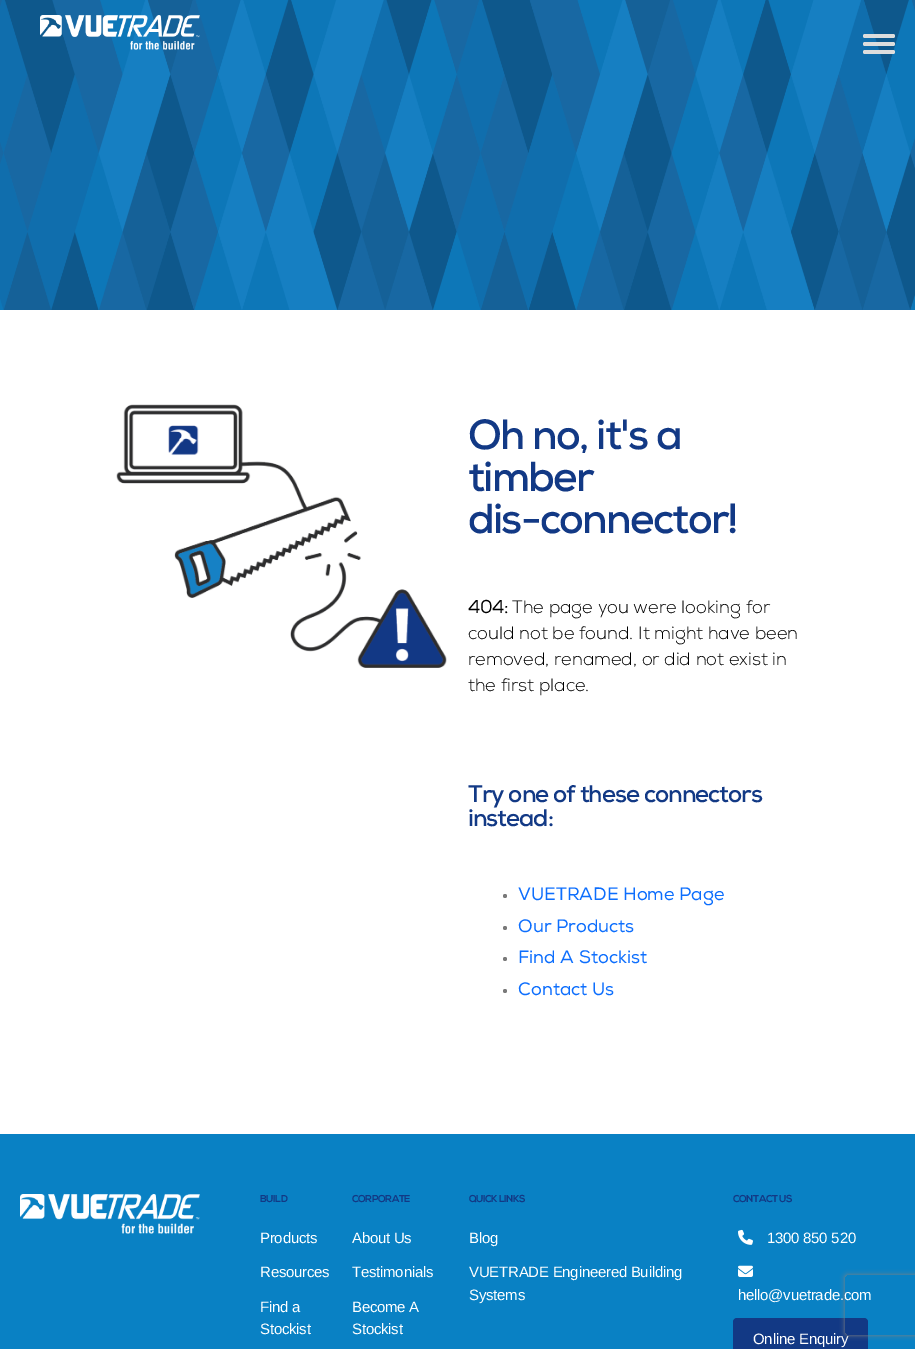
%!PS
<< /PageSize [915 1349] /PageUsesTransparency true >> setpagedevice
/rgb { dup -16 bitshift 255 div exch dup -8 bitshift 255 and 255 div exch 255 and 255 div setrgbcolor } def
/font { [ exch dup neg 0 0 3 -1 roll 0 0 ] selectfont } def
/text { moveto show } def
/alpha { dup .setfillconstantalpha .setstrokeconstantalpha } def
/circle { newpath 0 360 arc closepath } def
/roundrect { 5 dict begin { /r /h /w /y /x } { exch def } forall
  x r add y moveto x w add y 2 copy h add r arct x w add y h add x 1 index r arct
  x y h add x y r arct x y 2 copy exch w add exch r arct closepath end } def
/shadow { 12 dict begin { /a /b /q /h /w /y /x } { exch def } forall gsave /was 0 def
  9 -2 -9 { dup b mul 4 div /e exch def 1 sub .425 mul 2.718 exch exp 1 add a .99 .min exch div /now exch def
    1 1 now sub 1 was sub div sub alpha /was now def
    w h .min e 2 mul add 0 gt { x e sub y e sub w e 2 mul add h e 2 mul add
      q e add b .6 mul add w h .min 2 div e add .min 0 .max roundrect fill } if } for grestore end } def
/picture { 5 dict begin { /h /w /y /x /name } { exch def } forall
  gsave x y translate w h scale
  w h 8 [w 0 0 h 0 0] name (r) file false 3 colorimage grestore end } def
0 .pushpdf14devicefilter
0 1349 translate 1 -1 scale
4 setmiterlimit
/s1 { /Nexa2-Bold 18 font 16#000000 rgb } def
/s2 { /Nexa-Light 18 font 16#000000 rgb } def
/s3 { /Nexa-Regular 18 font 16#0D6EFD rgb } def
16#FFFFFF rgb
0 0 915 1349 rectfill
(pic1.raw) 0 0 915 310 picture
(pic2.raw) 40 15 160 35 picture
16#DDDDDD rgb
863 34 32 4 2 roundrect fill
863 42 32 4 2 roundrect fill
863 50 32 4 2 roundrect fill
(pic3.raw) 116 404 331 264 picture
/Nexa-Bold 42 font
16#123985 rgb
468 449 moveto -1.75 0 (Oh no, it's a) ashow
468 491 moveto -1.75 0 (timber) ashow
468 533 moveto -1.75 0 (dis-connector!) ashow
s1
(404:) 468 613 text
s2
(The page you were looking for) 512 613 text
(could not be found. It might have been) 468 639 text
(removed, renamed, or did not exist in) 468 665 text
(the first place.) 468 691 text
/Nexa-Bold 24 font
16#123985 rgb
468 802 moveto -1 0 (Try one of these connectors) ashow
468 826 moveto -1 0 (instead:) ashow
16#7A7A7A rgb
505 896 2 circle fill
s3
(VUETRADE Home Page) 518 900 text
16#7A7A7A rgb
505 928 2 circle fill
s3
(Our Products) 518 932 text
16#7A7A7A rgb
505 959 2 circle fill
s3
(Find A Stockist) 518 963 text
16#7A7A7A rgb
505 991 2 circle fill
s3
(Contact Us) 518 995 text
16#0981C4 rgb
0 1134 915 215 rectfill
(pic4.raw) 20 1194 180 40 picture
/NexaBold-Bold 10 font
16#123985 rgb
260 1202 moveto -0.5 0 (BUILD) ashow
/LiberationSans-Regular 15 font
16#FFFFFF rgb
260 1243 moveto -0.25 0 (Products) ashow
260 1277 moveto -0.25 0 (Resources) ashow
260 1312 moveto -0.25 0 (Find a) ashow
260 1334 moveto -0.25 0 (Stockist) ashow
/NexaBold-Bold 10 font
16#123985 rgb
352 1202 moveto -0.5 0 (CORPORATE) ashow
/LiberationSans-Regular 15 font
16#FFFFFF rgb
352 1243 moveto -0.25 0 (About Us) ashow
352 1277 moveto -0.25 0 (Testimonials) ashow
352 1312 moveto -0.25 0 (Become A) ashow
352 1334 moveto -0.25 0 (Stockist) ashow
/NexaBold-Bold 10 font
16#123985 rgb
469 1202 moveto -0.5 0 (QUICK LINKS) ashow
/LiberationSans-Regular 15 font
16#FFFFFF rgb
469 1243 moveto -0.25 0 (Blog) ashow
469 1277 moveto -0.25 0 (VUETRADE Engineered Building) ashow
469 1300 moveto -0.25 0 (Systems) ashow
/NexaBold-Bold 10 font
16#123985 rgb
733 1202 moveto -0.5 0 (CONTACT US) ashow
(pic5.raw) 738 1229 15 16 picture
/LiberationSans-Regular 15 font
16#FFFFFF rgb
767 1243 moveto -0.25 0 (1300 850 520) ashow
(pic6.raw) 738 1265 15 12 picture
738 1300 moveto -0.25 0 (hello@vuetrade.com) ashow
16#123985 rgb
733 1318 135 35 4 roundrect fill
16#FFFFFF rgb
753 1344 moveto -0.25 0 (Online Enquiry) ashow
gsave
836 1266 moveto 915 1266 lineto 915 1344 lineto 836 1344 lineto closepath 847 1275 moveto 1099 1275 lineto 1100 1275 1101 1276 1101 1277 curveto 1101 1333 lineto 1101 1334 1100 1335 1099 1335 curveto 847 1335 lineto 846 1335 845 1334 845 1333 curveto 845 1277 lineto 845 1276 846 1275 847 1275 curveto closepath eoclip newpath
16#808080 rgb
845 1275 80 60 2 2.5 1 shadow
grestore
.poppdf14devicefilter showpage
